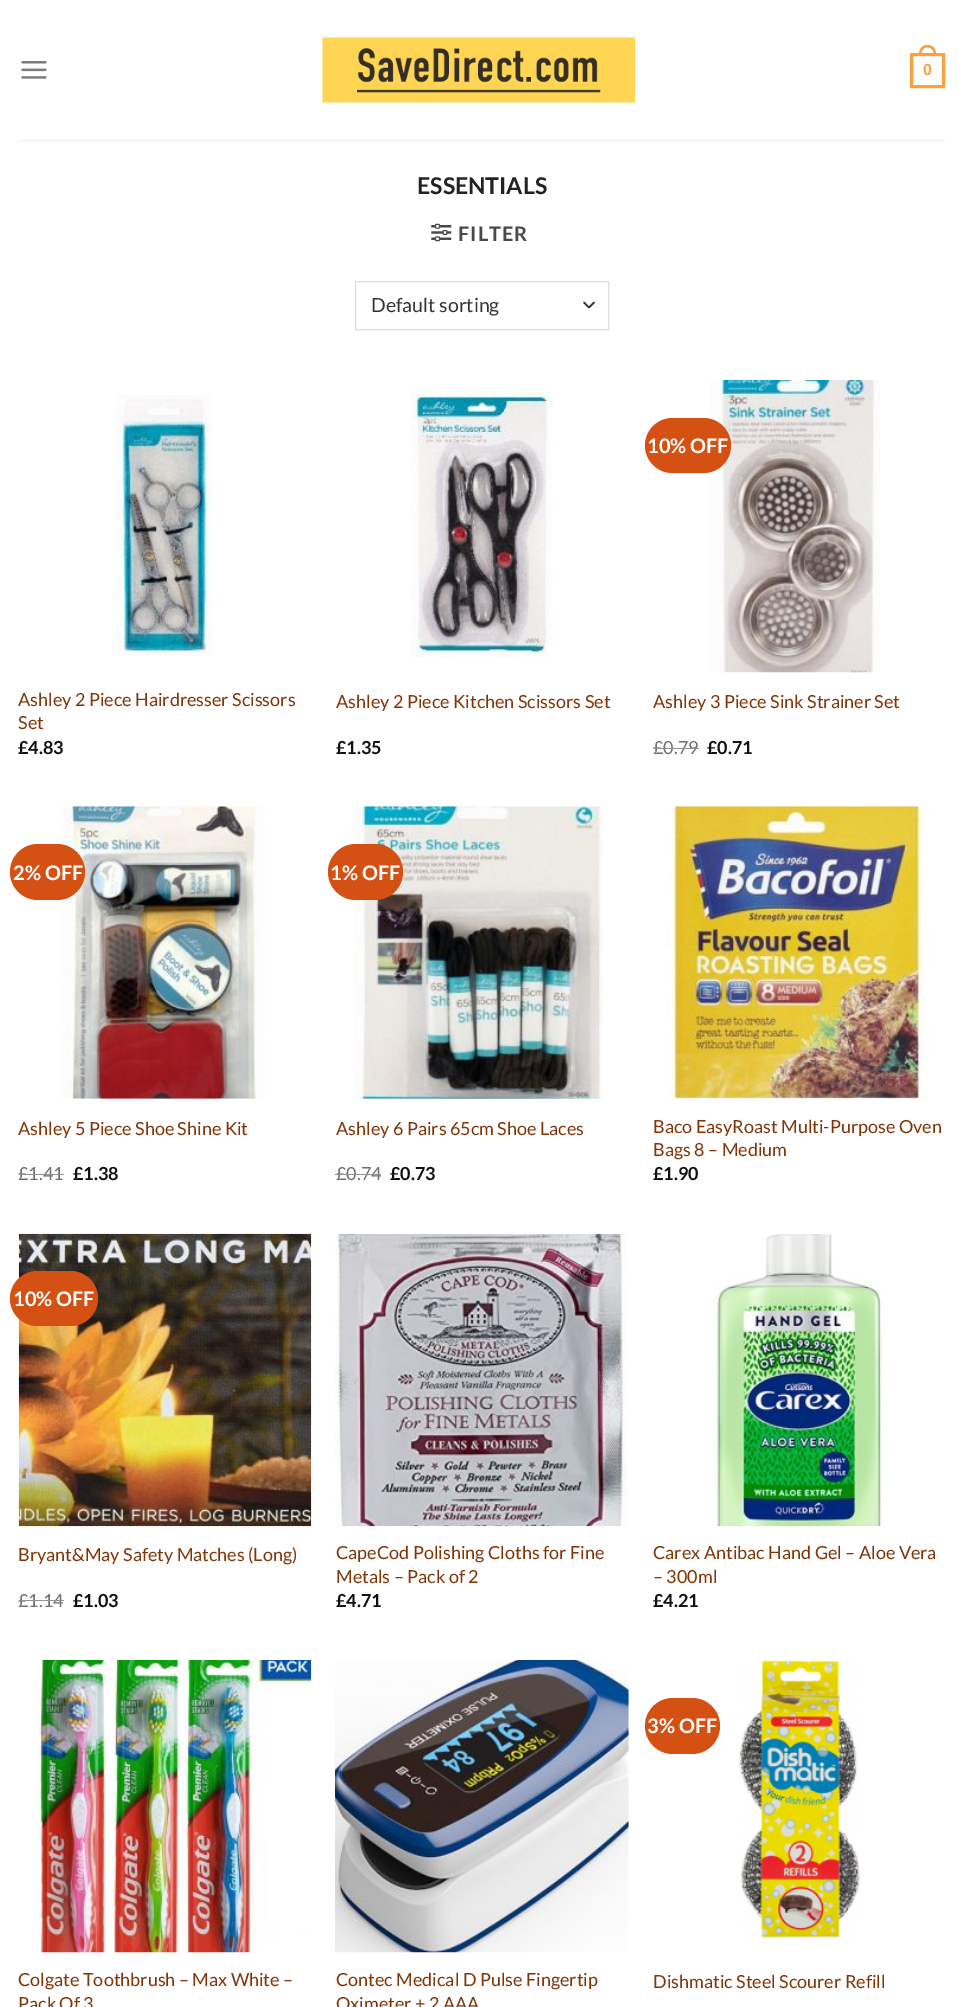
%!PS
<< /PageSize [963 2007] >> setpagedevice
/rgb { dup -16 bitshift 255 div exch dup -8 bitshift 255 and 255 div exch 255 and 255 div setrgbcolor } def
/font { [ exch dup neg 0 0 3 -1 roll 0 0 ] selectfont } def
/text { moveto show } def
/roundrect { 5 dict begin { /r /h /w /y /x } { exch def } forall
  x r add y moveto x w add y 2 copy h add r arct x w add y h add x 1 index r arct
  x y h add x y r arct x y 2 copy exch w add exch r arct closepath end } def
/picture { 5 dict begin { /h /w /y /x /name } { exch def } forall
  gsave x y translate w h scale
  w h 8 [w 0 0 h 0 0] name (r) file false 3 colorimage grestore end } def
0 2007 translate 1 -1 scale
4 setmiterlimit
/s1 { /LiberationSans-Bold 16 font 16#F9A03F rgb } def
/s2 { /Lato-Bold 23 font 16#222222 rgb } def
/s3 { /Lato-Regular 19.5 font 16#333333 rgb } def
/s4 { /Lato-Regular 18 font 16#813405 rgb } def
/s5 { /Lato-Bold 18 font 16#111111 rgb } def
/s6 { /Lato-Bold 20 font 16#FFFFFF rgb } def
/s7 { /Lato-Regular 18 font 16#707070 rgb } def
16#FFFFFF rgb
0 0 963 2007 rectfill
(pic1.raw) 21 61 26 18 picture
(pic2.raw) 322 37 313 66 picture
16#F9A03F rgb
3 setlinewidth
911.5 54.5 32 32 rectstroke
927.5 45 moveto 933.5 45 936 49.5 936 55 curveto 919 55 lineto 919 49.5 921.5 45 927.5 45 curveto closepath 927.5 47.5 moveto 932 47.5 934 51 934 55 curveto 921 55 lineto 921 51 923 47.5 927.5 47.5 curveto closepath eofill
s1
(0) 923 75 text
16#EDEDED rgb
19 140 926 1 rectfill
s2
(ESSENTIALS) 417 194 text
(pic3.raw) 431 223 21 19 picture
/Lato-Bold 20 font
16#494949 rgb
458 241 moveto 1 0 (FILTER) ashow
16#333333 rgb
1.7 setlinewidth
1 setlinecap
1 setlinejoin
584 302.5 moveto 589 307.5 lineto 594 302.5 lineto stroke
16#DDDDDD rgb
1 setlinewidth
0 setlinecap
0 setlinejoin
355.5 281.5 253 48 rectstroke
s3
(Default sorting) 371 312 text
(pic4.raw) 114 395 98 261 picture
s4
(Ashley 2 Piece Hairdresser Scissors) 18 706 text
(Set) 18 729 text
s5
(£4.83) 18 754 text
(pic5.raw) 410 388 144 269 picture
s4
(Ashley 2 Piece Kitchen Scissors Set) 336 708 text
s5
(£1.35) 336 754 text
(pic6.raw) 710 380 170 293 picture
16#D45113 rgb
645 418 86 55 27.5 roundrect fill
s6
(10% OFF) 647 453 text
s4
(Ashley 3 Piece Sink Strainer Set) 653 708 text
s7
(£0.79) 653 754 text
16#929292 rgb
653 748 46 1 rectfill
s5
(£0.71) 707 754 text
(pic7.raw) 58 806 207 293 picture
16#D45113 rgb
10 844 75 56 28 roundrect fill
s6
(2% OFF) 13 880 text
s4
(Ashley 5 Piece Shoe Shine Kit) 18 1135 text
s7
(£1.41) 18 1180 text
16#929292 rgb
19 1174 45 1 rectfill
s5
(£1.38) 73 1180 text
(pic8.raw) 354 806 249 293 picture
16#D45113 rgb
328 844 75 56 28 roundrect fill
s6
(1% OFF) 330 880 text
s4
(Ashley 6 Pairs 65cm Shoe Laces) 336 1135 text
s7
(£0.74) 336 1180 text
16#929292 rgb
335 1174 46 1 rectfill
s5
(£0.73) 390 1180 text
(pic9.raw) 666 806 266 293 picture
s4
(Baco EasyRoast Multi-Purpose Oven) 653 1133 text
(Bags 8 – Medium) 653 1156 text
s5
(£1.90) 653 1180 text
(pic10.raw) 18 1233 294 294 picture
16#D45113 rgb
10 1271 88 55 27.5 roundrect fill
s6
(10% OFF) 13 1306 text
s4
(Bryant&May Safety Matches \(Long\)) 18 1561 text
s7
(£1.14) 18 1607 text
16#929292 rgb
19 1600 45 1 rectfill
s5
(£1.03) 73 1607 text
(pic11.raw) 335 1233 293 294 picture
s4
(CapeCod Polishing Cloths for Fine) 336 1559 text
(Metals – Pack of 2) 336 1583 text
s5
(£4.71) 336 1607 text
(pic12.raw) 713 1234 169 293 picture
s4
(Carex Antibac Hand Gel – Aloe Vera) 653 1559 text
(– 300ml) 653 1583 text
s5
(£4.21) 653 1607 text
(pic13.raw) 37 1660 275 293 picture
s4
(Colgate Toothbrush – Max White –) 18 1986 text
(Pack Of 3) 18 2010 text
(pic14.raw) 335 1660 294 293 picture
(Contec Medical D Pulse Fingertip) 336 1986 text
(Oximeter + 2 AAA) 336 2010 text
16#D45113 rgb
645 1698 75 56 28 roundrect fill
s6
(3% OFF) 647 1733 text
(pic15.raw) 739 1660 121 278 picture
s4
(Dishmatic Steel Scourer Refill) 653 1988 text
showpage
